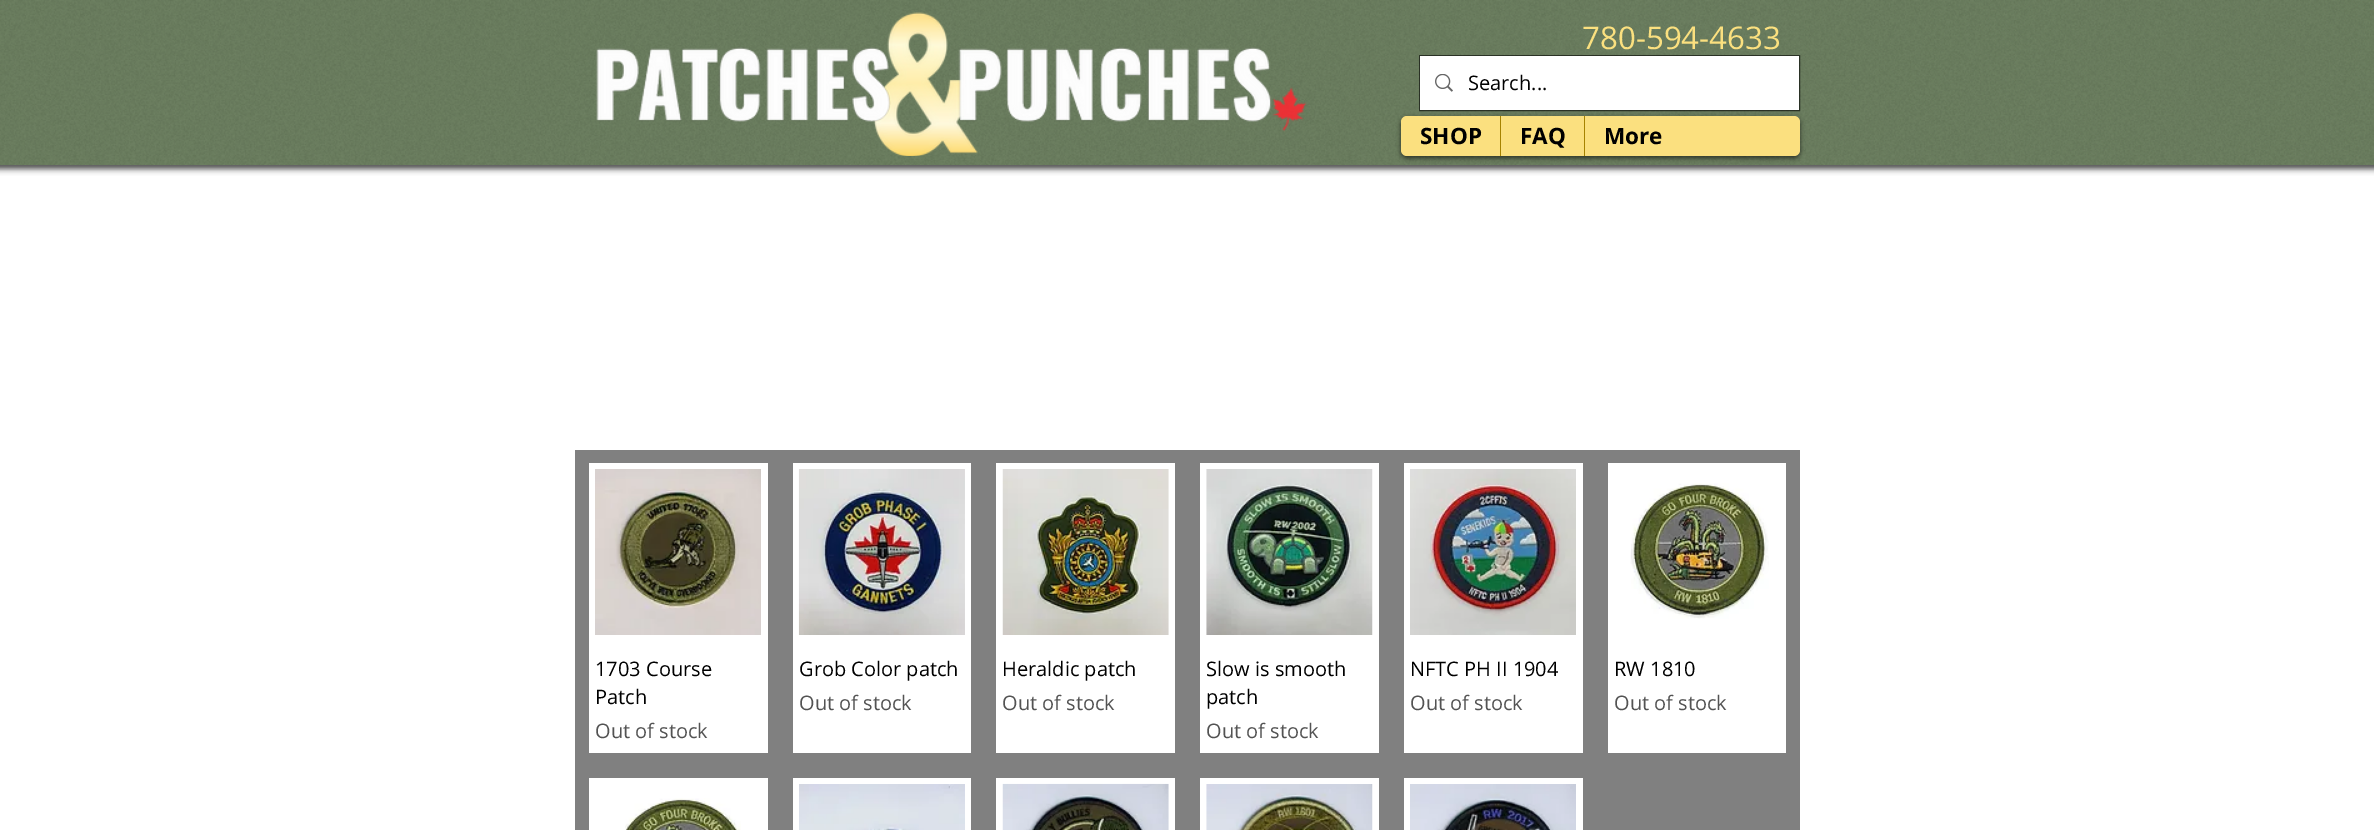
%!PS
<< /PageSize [2374 830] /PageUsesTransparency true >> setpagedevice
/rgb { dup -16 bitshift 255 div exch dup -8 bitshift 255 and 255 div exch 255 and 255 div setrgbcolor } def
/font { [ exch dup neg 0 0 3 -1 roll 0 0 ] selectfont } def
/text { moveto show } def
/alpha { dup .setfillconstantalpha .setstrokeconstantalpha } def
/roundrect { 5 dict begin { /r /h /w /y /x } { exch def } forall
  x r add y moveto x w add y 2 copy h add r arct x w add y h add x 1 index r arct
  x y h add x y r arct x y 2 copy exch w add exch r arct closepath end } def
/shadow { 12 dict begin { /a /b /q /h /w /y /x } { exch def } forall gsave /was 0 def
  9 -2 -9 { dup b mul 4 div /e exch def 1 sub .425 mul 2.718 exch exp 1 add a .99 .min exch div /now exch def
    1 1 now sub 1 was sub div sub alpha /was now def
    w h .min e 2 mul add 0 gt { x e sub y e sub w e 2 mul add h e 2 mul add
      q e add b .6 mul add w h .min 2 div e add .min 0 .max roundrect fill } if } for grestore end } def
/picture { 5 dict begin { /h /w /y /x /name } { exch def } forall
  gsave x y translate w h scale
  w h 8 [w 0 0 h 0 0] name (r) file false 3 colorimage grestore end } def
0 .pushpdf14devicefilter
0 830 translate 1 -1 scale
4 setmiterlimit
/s1 { /OpenSans-Regular 31.25 font 16#FBE07F rgb } def
/s2 { /OpenSans-Regular 20 font 16#000000 rgb } def
/s3 { /OpenSans-Bold 22.5 font 16#000000 rgb } def
/s4 { /OpenSans-Regular 20 font 16#535353 rgb } def
16#FFFFFF rgb
0 0 2374 830 rectfill
16#000000 rgb
-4 -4 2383 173 0 3 0.7 shadow
16#6A7D5E rgb
0 0 2374 165 rectfill
(pic1.raw) 0 0 2374 165 picture
(pic2.raw) 596 12 711 144 picture
s1
(780-594-4633) 1582 49 text
0.6 alpha
16#000000 rgb
1419.5 55.5 380 55 rectstroke
1 alpha
16#FFFFFF rgb
1420 56 379 54 rectfill
(pic3.raw) 1435 74 18 18 picture
s2
(Search...) 1468 90 text
1401 118 399 40 6 2.5 0.6 shadow
16#FBE07F rgb
1401 116 399 40 6 roundrect fill
s3
(SHOP) 1420 144 text
16#A68201 rgb
1500 116 1 40 rectfill
s3
(FAQ) 1520 144 text
16#A68201 rgb
1584 116 1 40 rectfill
s3
(More) 1604 144 text
16#808080 rgb
575 450 1225 380 rectfill
16#FFFFFF rgb
589 463 179 290 rectfill
(pic4.raw) 595 469 166 166 picture
s2
(1703 Course) 595 676 text
(Patch) 595 704 text
s4
(Out of stock) 595 738 text
16#FFFFFF rgb
793 463 178 290 rectfill
(pic5.raw) 798 469 167 166 picture
s2
(Grob Color patch) 799 676 text
s4
(Out of stock) 799 710 text
16#FFFFFF rgb
996 463 179 290 rectfill
(pic6.raw) 1002 469 167 166 picture
s2
(Heraldic patch) 1002 676 text
s4
(Out of stock) 1002 710 text
16#FFFFFF rgb
1200 463 179 290 rectfill
(pic7.raw) 1206 469 167 166 picture
s2
(Slow is smooth) 1206 676 text
(patch) 1206 704 text
s4
(Out of stock) 1206 738 text
16#FFFFFF rgb
1404 463 179 290 rectfill
(pic8.raw) 1410 469 166 166 picture
s2
(NFTC PH II 1904) 1410 676 text
s4
(Out of stock) 1410 710 text
16#FFFFFF rgb
1608 463 178 290 rectfill
(pic9.raw) 1630 483 139 136 picture
s2
(RW 1810) 1614 676 text
s4
(Out of stock) 1614 710 text
16#FFFFFF rgb
589 778 179 52 rectfill
(pic10.raw) 625 798 116 32 picture
793 778 178 52 rectfill
(pic11.raw) 799 784 166 46 picture
996 778 179 52 rectfill
(pic12.raw) 1002 783 167 47 picture
1200 778 179 52 rectfill
(pic13.raw) 1206 784 167 46 picture
1404 778 179 52 rectfill
(pic14.raw) 1410 784 166 46 picture
.poppdf14devicefilter showpage
